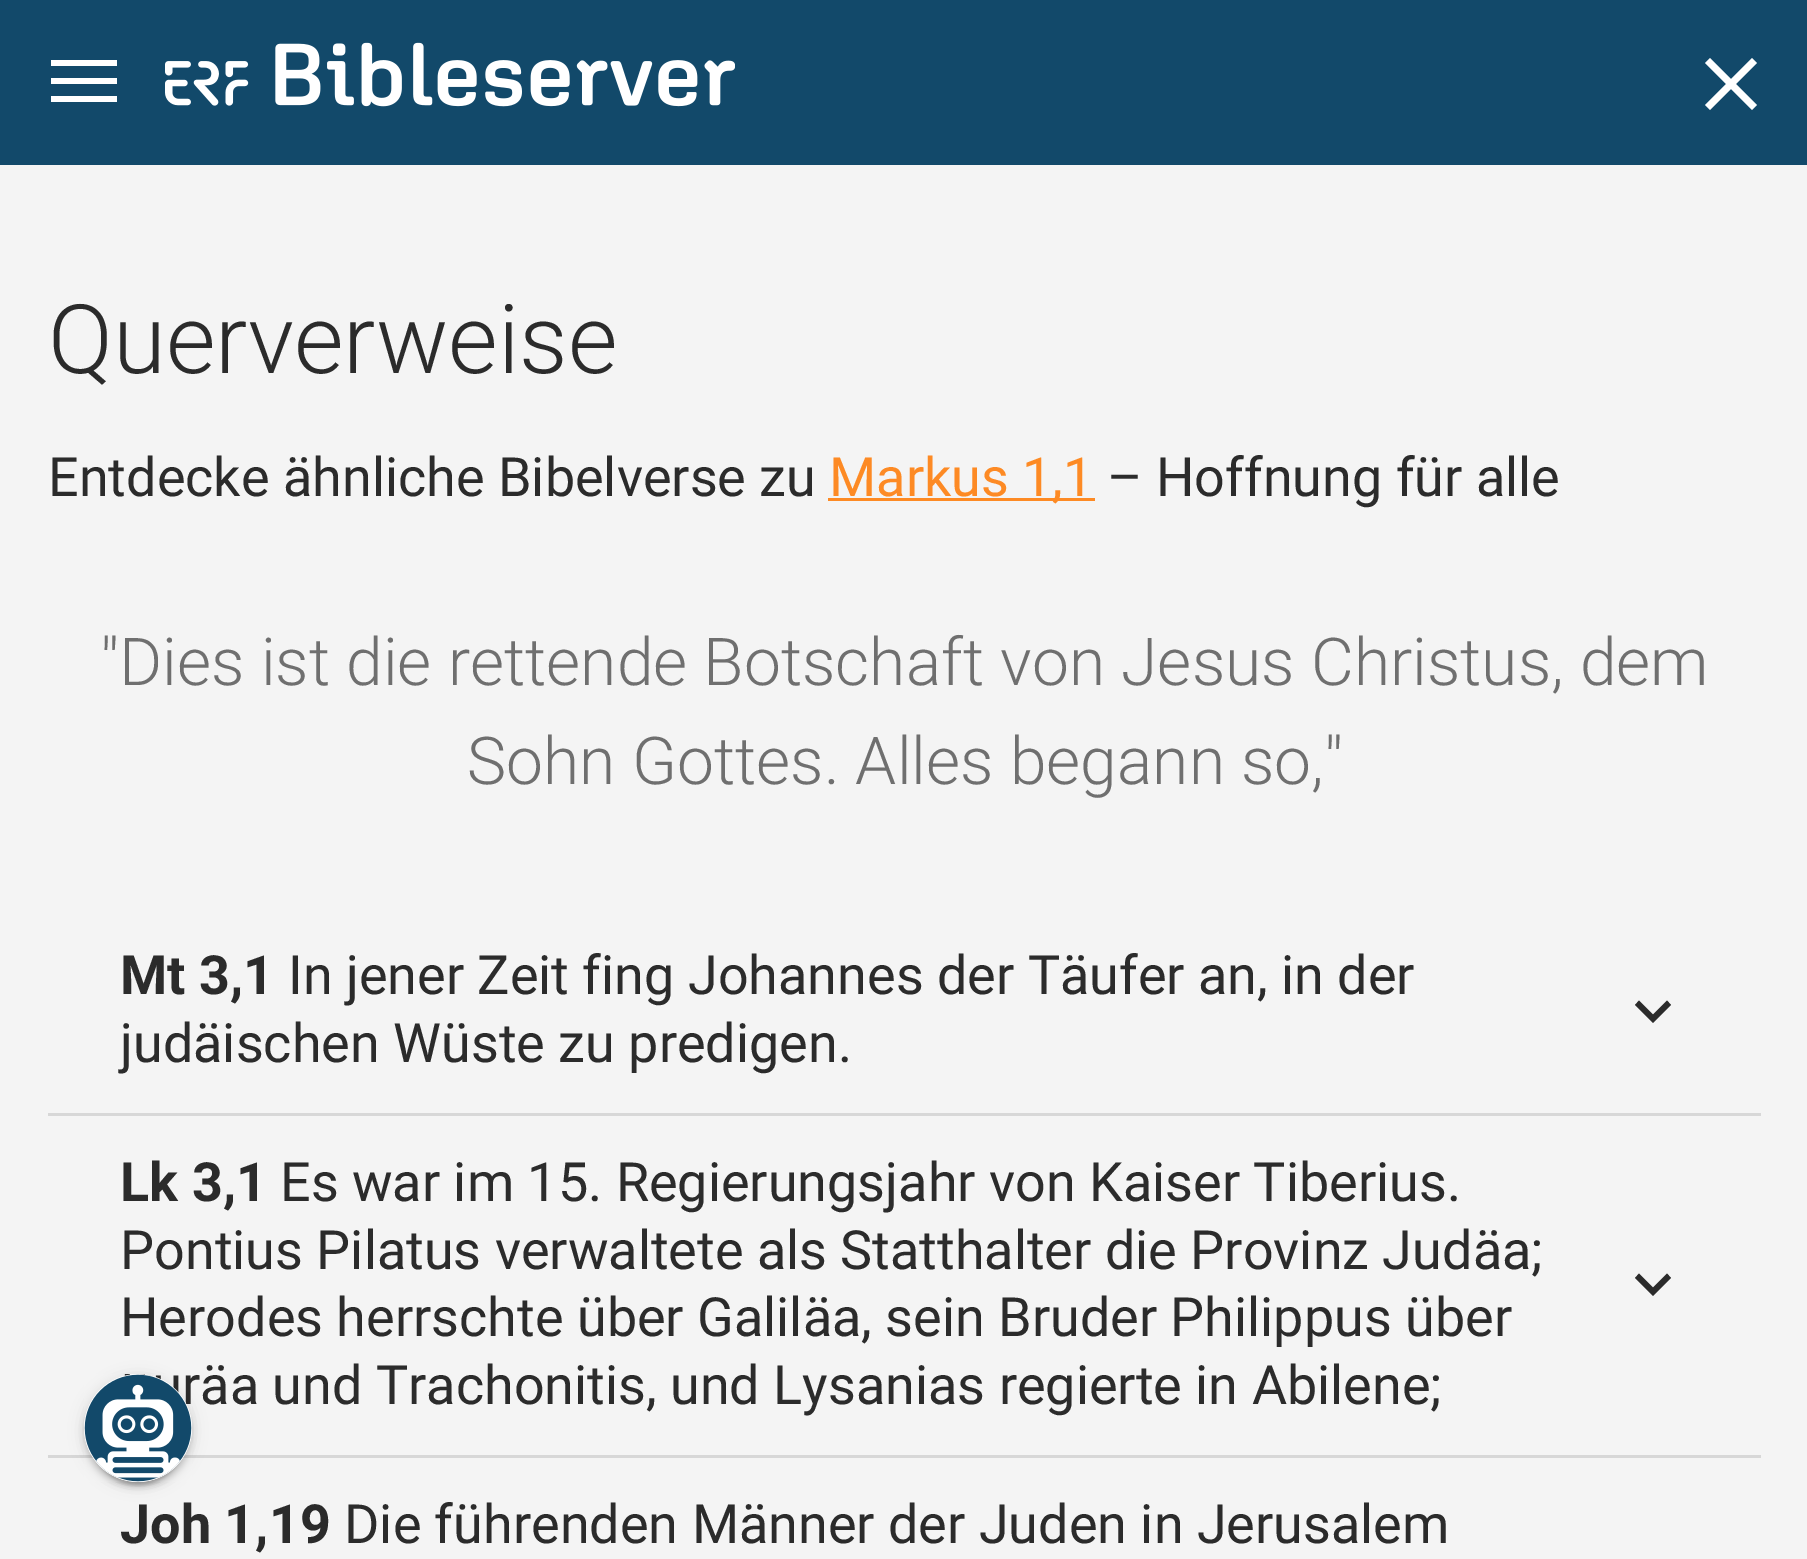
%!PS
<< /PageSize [1807 1559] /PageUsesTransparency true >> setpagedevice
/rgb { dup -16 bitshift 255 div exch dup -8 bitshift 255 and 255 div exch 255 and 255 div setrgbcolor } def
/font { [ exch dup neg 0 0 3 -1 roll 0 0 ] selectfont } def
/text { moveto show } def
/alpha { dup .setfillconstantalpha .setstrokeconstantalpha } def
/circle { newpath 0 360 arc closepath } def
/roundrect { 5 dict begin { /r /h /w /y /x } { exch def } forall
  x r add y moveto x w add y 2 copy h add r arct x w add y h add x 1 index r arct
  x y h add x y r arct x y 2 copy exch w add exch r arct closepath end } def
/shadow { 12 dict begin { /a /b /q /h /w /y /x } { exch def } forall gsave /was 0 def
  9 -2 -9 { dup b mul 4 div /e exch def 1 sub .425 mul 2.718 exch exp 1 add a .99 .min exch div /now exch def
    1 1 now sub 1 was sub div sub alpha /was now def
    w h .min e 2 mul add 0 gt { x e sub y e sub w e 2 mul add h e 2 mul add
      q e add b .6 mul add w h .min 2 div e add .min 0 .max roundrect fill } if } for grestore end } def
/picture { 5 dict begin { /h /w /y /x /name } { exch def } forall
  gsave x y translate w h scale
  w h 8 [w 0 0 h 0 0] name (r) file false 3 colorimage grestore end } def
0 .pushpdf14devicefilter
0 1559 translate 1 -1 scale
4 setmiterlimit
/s1 { /Roboto-Light 96 font 16#2B2B2B rgb } def
/s2 { /Roboto-Regular 54 font 16#2B2B2B rgb } def
/s3 { /Roboto-Regular 54 font 16#FD8A24 rgb } def
/s4 { /Roboto-Light 66 font 16#6F6F6F rgb } def
/s5 { /Roboto-Bold 54 font 16#2B2B2B rgb } def
16#F4F4F4 rgb
0 0 1807 1559 rectfill
16#12496A rgb
0 0 1807 165 rectfill
16#FFFFFF rgb
1757 63 moveto 1752 58 lineto 1731 79 lineto 1710 58 lineto 1705 63 lineto 1726 84 lineto 1705 105 lineto 1710 110 lineto 1731 89 lineto 1752 110 lineto 1757 105 lineto 1736 84 lineto closepath fill
51 60 66 6 rectfill
51 78 66 6 rectfill
51 96 66 6 rectfill
(pic1.raw) 165 42 570 65 picture
s1
(Querverweise) 48 373 text
s2
(Entdecke ähnliche Bibelverse zu) 48 496 text
16#FD8A24 rgb
828 498 267 3 rectfill
(Markus 1,1) 829 496 text
s2
(– Hoffnung für alle) 1107 496 text
s4
("Dies ist die rettende Botschaft von Jesus Christus, dem) 100 685 text
(Sohn Gottes. Alles begann so,") 467 784 text
s5
(Mt 3,1) 120 994 text
s2
(In jener Zeit fing Johannes der Täufer an, in der) 288 994 text
(judäischen Wüste zu predigen.) 120 1062 text
1639 1000.5 moveto 1653 1014.5 lineto 1667 1000.5 lineto 1671 1005 lineto 1653 1023 lineto 1635 1005 lineto closepath fill
16#D7D7D7 rgb
48 1113 1713 3 rectfill
s5
(Lk 3,1) 120 1201 text
s2
(Es war im 15. Regierungsjahr von Kaiser Tiberius.) 280 1201 text
(Pontius Pilatus verwaltete als Statthalter die Provinz Judäa;) 120 1269 text
(Herodes herrschte über Galiläa, sein Bruder Philippus über) 120 1336 text
(räa und Trachonitis, und Lysanias regierte in Abilene;) 182 1404 text
1639 1273.5 moveto 1653 1287.5 lineto 1667 1273.5 lineto 1671 1278 lineto 1653 1296 lineto 1635 1278 lineto closepath fill
16#D7D7D7 rgb
48 1455 1713 3 rectfill
s5
(Joh 1,19) 120 1543 text
s2
(Die führenden Männer der Juden in Jerusalem) 344 1543 text
16#000000 rgb
84 1377 108 108 54 7.5 0.12 shadow
84 1380 108 108 54 3 0.14 shadow
90 1389 96 96 48 1.5 0.2 shadow
16#FFFFFF rgb
138 1428 54 circle fill
(pic2.raw) 84 1374 108 108 picture
.poppdf14devicefilter showpage
